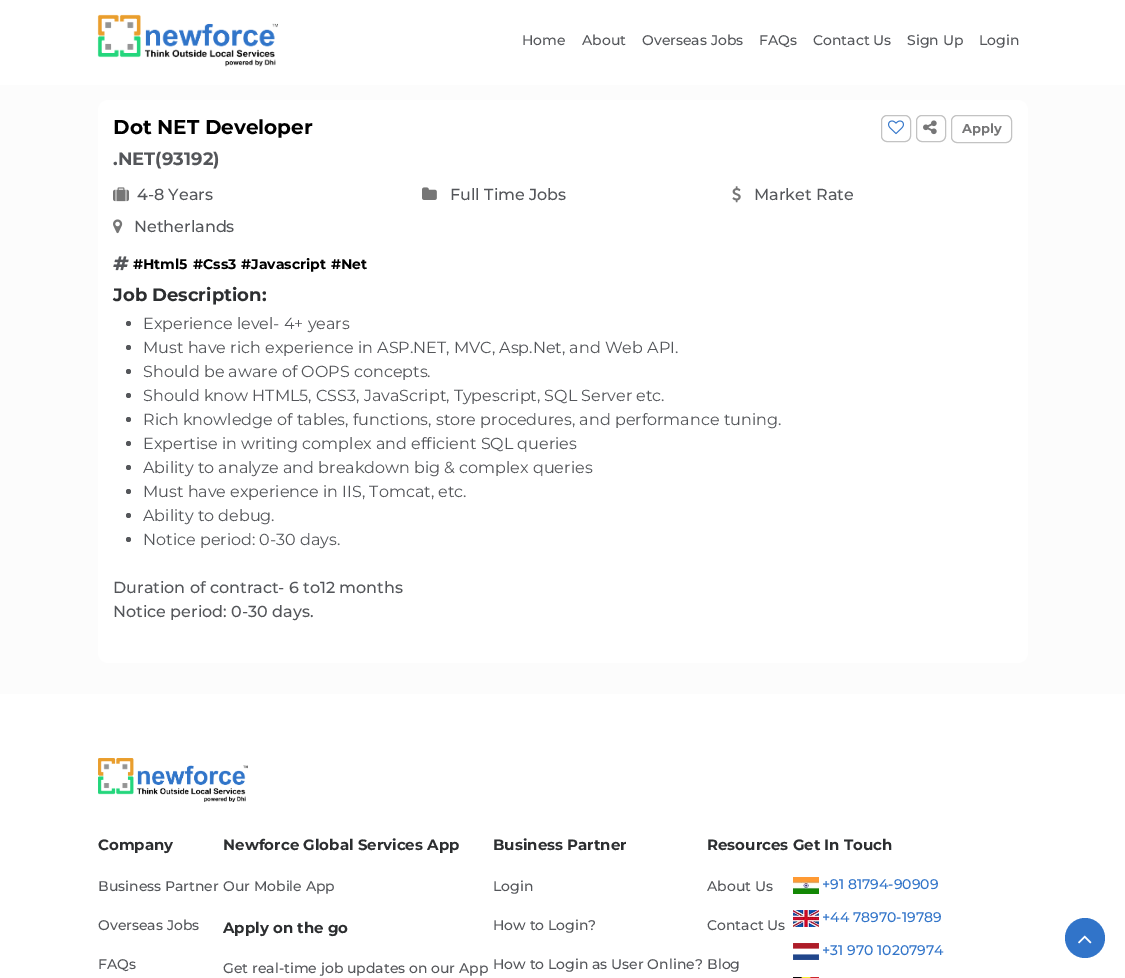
%!PS
<< /PageSize [1125 978] >> setpagedevice
/rgb { dup -16 bitshift 255 div exch dup -8 bitshift 255 and 255 div exch 255 and 255 div setrgbcolor } def
/font { [ exch dup neg 0 0 3 -1 roll 0 0 ] selectfont } def
/text { moveto show } def
/circle { newpath 0 360 arc closepath } def
/roundrect { 5 dict begin { /r /h /w /y /x } { exch def } forall
  x r add y moveto x w add y 2 copy h add r arct x w add y h add x 1 index r arct
  x y h add x y r arct x y 2 copy exch w add exch r arct closepath end } def
/picture { 5 dict begin { /h /w /y /x /name } { exch def } forall
  gsave x y translate w h scale
  w h 8 [w 0 0 h 0 0] name (r) file false 3 colorimage grestore end } def
0 978 translate 1 -1 scale
4 setmiterlimit
/s1 { /Montserrat-Medium 14 font 16#54565A rgb } def
/s2 { /Montserrat-Bold 20 font 16#000000 rgb } def
/s3 { /Montserrat-Bold 13 font 16#767677 rgb } def
/s4 { /Montserrat-Bold 18 font 16#54565A rgb } def
/s5 { /Montserrat-Medium 16 font 16#54565A rgb } def
/s6 { /Montserrat-Bold 14 font 16#000000 rgb } def
/s7 { /Montserrat-Bold 18 font 16#2C2E30 rgb } def
/s8 { /Montserrat-Regular 16 font 16#54565A rgb } def
/s9 { /Montserrat-Bold 15 font 16#2C2E30 rgb } def
/s10 { /Montserrat-Medium 14 font 16#3174C9 rgb } def
16#FFFFFF rgb
0 0 1125 978 rectfill
(pic1.raw) 97 14 181 53 picture
s1
(Home) 522 45 text
(About) 582 45 text
(Overseas Jobs) 642 45 text
(FAQs) 759 45 text
(Contact Us) 813 45 text
(Sign Up) 907 45 text
(Login) 979 45 text
16#FCFCFC rgb
0 85 1125 609 rectfill
16#FFFFFF rgb
98 100 930 563 10 roundrect fill
s2
(Dot NET Developer) 113 134 text
16#C3C3C3 rgb
881.5 115.5 29 26 5.5 roundrect stroke
(pic2.raw) 888 120 16 15 picture
916.5 115.5 29 26 5.5 roundrect stroke
(pic3.raw) 923 120 14 15 picture
951.5 115.5 60 27 5.5 roundrect stroke
s3
(Apply) 962 133 text
s4
(.NET\(93192\)) 113 165 text
(pic4.raw) 113 187 16 15 picture
s5
(4-8 Years) 137 200 text
(pic5.raw) 422 187 15 13 picture
(Full Time Jobs) 450 200 text
(pic6.raw) 732 186 9 17 picture
(Market Rate) 754 200 text
(pic7.raw) 113 219 10 15 picture
(Netherlands) 134 232 text
(pic8.raw) 113 256 16 15 picture
s6
(#Html5) 133 269 text
(#Css3) 193 269 text
(#Javascript) 241 269 text
(#Net) 331 269 text
s7
(Job Description:) 113 301 text
16#54565A rgb
128.5 323.5 2.5 circle fill
s8
(Experience level- 4+ years) 143 329 text
128.5 347.5 2.5 circle fill
(Must have rich experience in ASP.NET, MVC, Asp.Net, and Web API.) 143 353 text
128.5 371.5 2.5 circle fill
(Should be aware of OOPS concepts.) 143 377 text
128.5 395.5 2.5 circle fill
(Should know HTML5, CSS3, JavaScript, Typescript, SQL Server etc.) 143 401 text
128.5 419.5 2.5 circle fill
(Rich knowledge of tables, functions, store procedures, and performance tuning.) 143 425 text
128.5 443.5 2.5 circle fill
(Expertise in writing complex and efficient SQL queries) 143 449 text
128.5 467.5 2.5 circle fill
(Ability to analyze and breakdown big & complex queries) 143 473 text
128.5 491.5 2.5 circle fill
(Must have experience in IIS, Tomcat, etc.) 143 497 text
128.5 515.5 2.5 circle fill
(Ability to debug.) 143 521 text
128.5 539.5 2.5 circle fill
(Notice period: 0-30 days.) 143 545 text
s5
(Duration of contract- 6 to12 months) 113 593 text
(Notice period: 0-30 days.) 113 617 text
(pic9.raw) 98 758 150 44 picture
s9
(Company) 98 850 text
s1
(Business Partner) 98 891 text
(Overseas Jobs) 98 930 text
(FAQs) 98 969 text
s9
(Newforce Global Services App) 223 850 text
s1
(Our Mobile App) 223 891 text
s9
(Apply on the go) 223 933 text
s1
(Get real-time job updates on our App) 223 973 text
s9
(Business Partner) 493 850 text
s1
(Login) 493 891 text
(How to Login?) 493 930 text
(How to Login as User Online?) 493 969 text
s9
(Resources Get In Touch) 707 850 text
s1
(About Us) 707 891 text
(Contact Us) 707 930 text
(Blog) 707 969 text
(pic10.raw) 793 877 26 17 picture
s10
(+91 81794-90909) 822 889 text
(pic11.raw) 793 910 26 17 picture
(+44 78970-19789) 822 922 text
(pic12.raw) 793 943 26 17 picture
(+31 970 10207974) 822 955 text
(pic13.raw) 793 977 26 1 picture
1085 938 20 circle fill
(pic14.raw) 1078 935 14 9 picture
showpage
